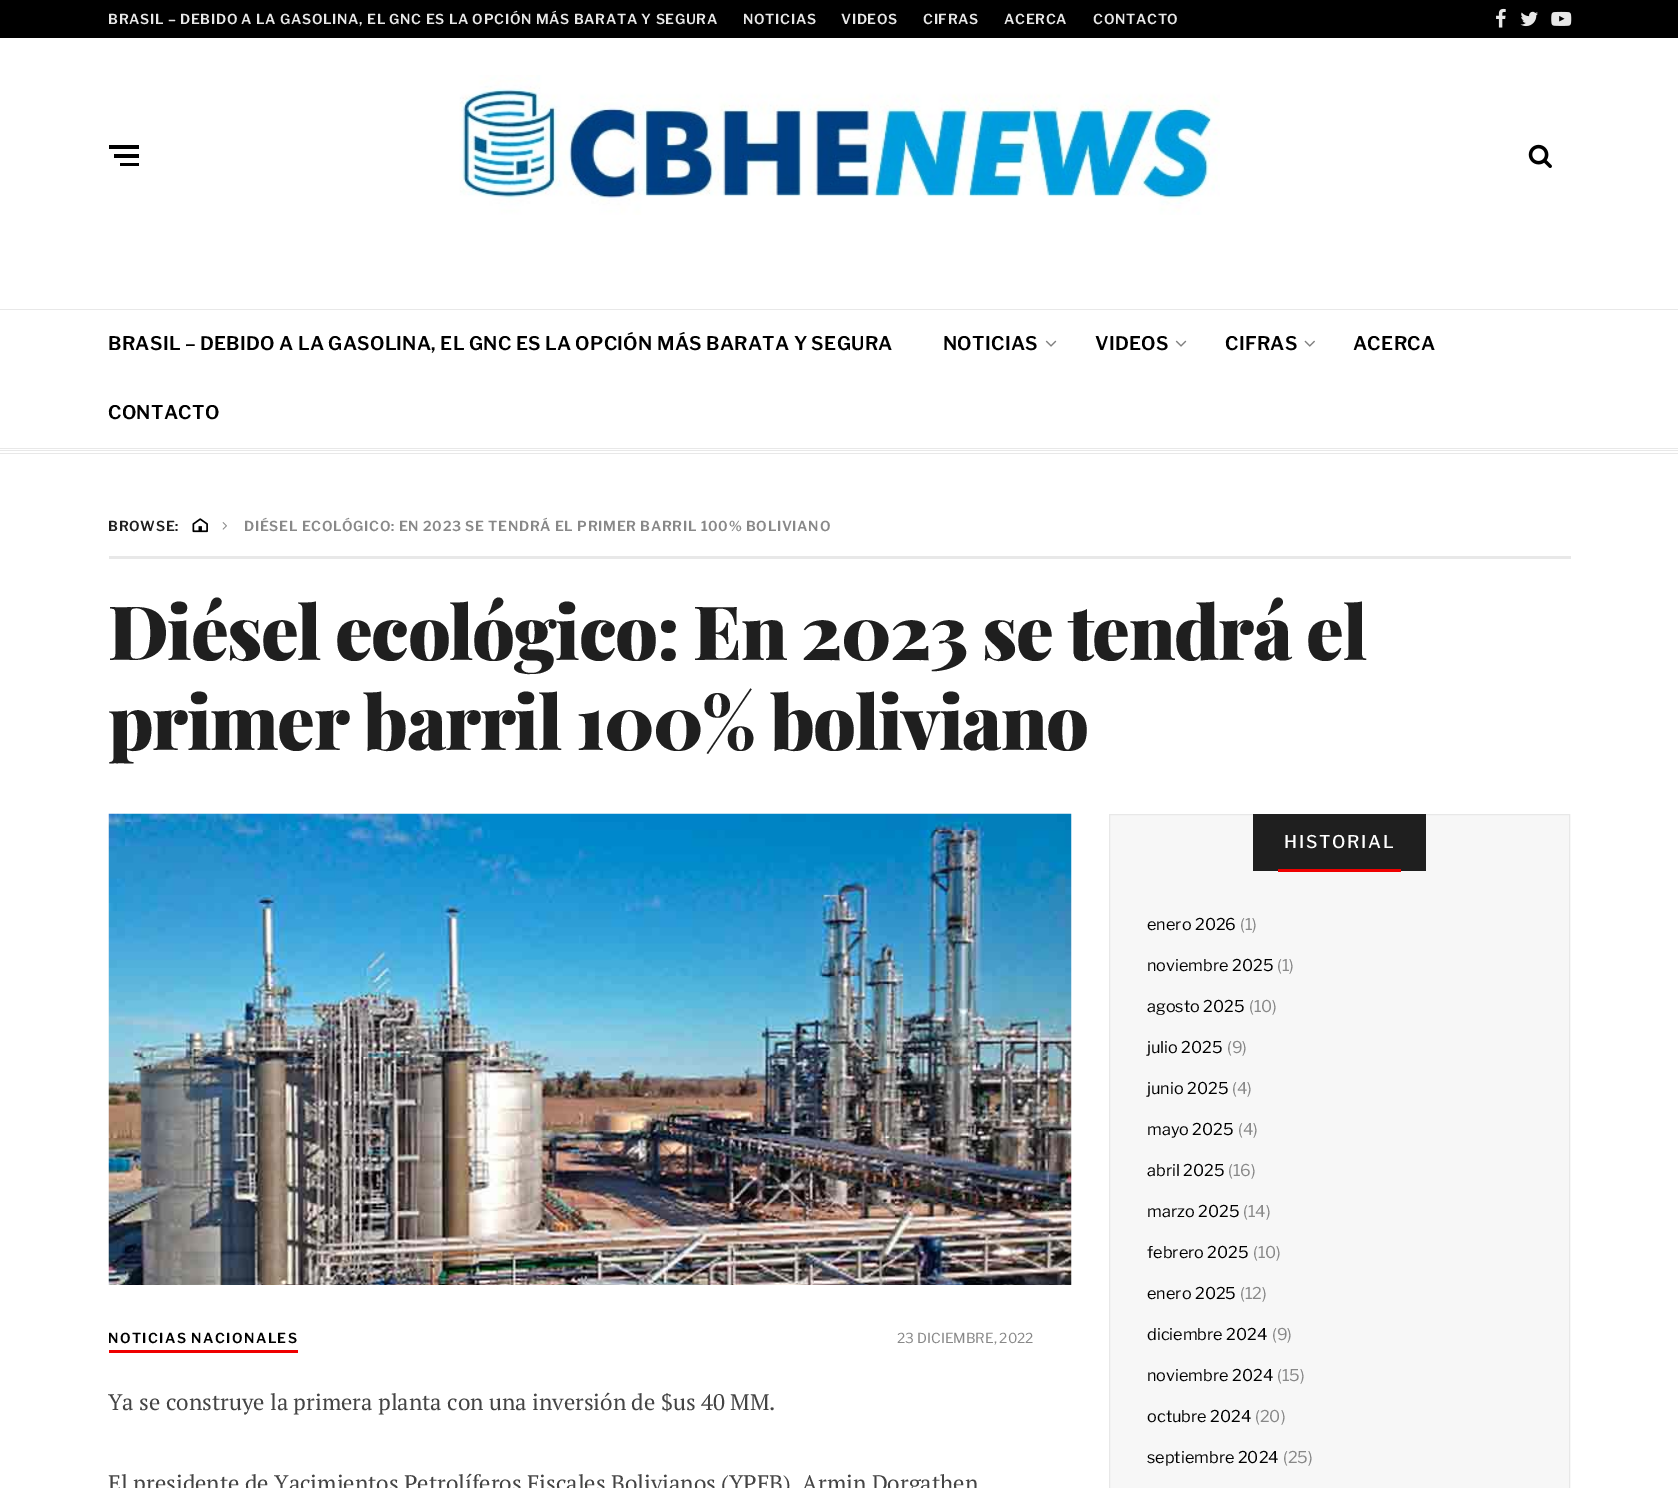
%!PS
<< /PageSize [1678 1488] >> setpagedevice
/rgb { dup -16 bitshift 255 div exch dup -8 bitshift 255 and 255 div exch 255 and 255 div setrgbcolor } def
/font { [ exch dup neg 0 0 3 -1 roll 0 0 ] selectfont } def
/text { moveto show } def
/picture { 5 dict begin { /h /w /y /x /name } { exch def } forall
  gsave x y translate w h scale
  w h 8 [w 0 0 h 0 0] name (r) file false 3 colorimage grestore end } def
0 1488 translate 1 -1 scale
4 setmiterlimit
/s1 { /LibreFranklin-Regular 13.75 font 16#888888 rgb } def
/s2 { /PTSerif-Regular 22.5 font 16#444444 rgb } def
/s3 { /LibreFranklin-Regular 16.25 font 16#000000 rgb } def
/s4 { /LibreFranklin-Regular 16.25 font 16#888888 rgb } def
16#FFFFFF rgb
0 0 1678 1488 rectfill
16#000000 rgb
0 0 1678 38 rectfill
/LibreFranklin-SemiBold 13.75 font
16#E8E8E8 rgb
108 24 moveto 0.7 0 (BRASIL – DEBIDO A LA GASOLINA, EL GNC ES LA OPCIÓN MÁS BARATA Y SEGURA) ashow
743 24 moveto 0.7 0 (NOTICIAS) ashow
841 24 moveto 0.7 0 (VIDEOS) ashow
923 24 moveto 0.7 0 (CIFRAS) ashow
1004 24 moveto 0.7 0 (ACERCA) ashow
1093 24 moveto 0.7 0 (CONTACTO) ashow
(pic1.raw) 1496 8 10 20 picture
(pic2.raw) 1520 11 18 16 picture
(pic3.raw) 1551 11 21 15 picture
0 309 1678 1 rectfill
16#000000 rgb
109 145 30 4 rectfill
114 154 25 4 rectfill
120 163 19 3 rectfill
(pic4.raw) 459 75 761 140 picture
(pic5.raw) 1528 144 24 24 picture
16#E8E8E8 rgb
0 448 1678 1 rectfill
/LibreFranklin-SemiBold 18.75 font
16#000000 rgb
108 350 moveto 0.28 0 (BRASIL – DEBIDO A LA GASOLINA, EL GNC ES LA OPCIÓN MÁS BARATA Y SEGURA) ashow
943 350 moveto 0.28 0 (NOTICIAS) ashow
(pic6.raw) 1045 340 12 7 picture
1095 350 moveto 0.28 0 (VIDEOS) ashow
(pic6.raw) 1175 340 12 7 picture
1225 350 moveto 0.28 0 (CIFRAS) ashow
(pic7.raw) 1304 340 11 7 picture
1353 350 moveto 0.28 0 (ACERCA) ashow
108 419 moveto 0.28 0 (CONTACTO) ashow
16#E8E8E8 rgb
0 453 1678 1 rectfill
0 450 1678 1 rectfill
109 556 1462 3 rectfill
/LibreFranklin-SemiBold 13.75 font
16#1F1F1F rgb
108 531 moveto 0.7 0 (BROWSE:) ashow
(pic8.raw) 192 518 16 15 picture
(pic9.raw) 222 522 5 8 picture
16#888888 rgb
244 531 moveto 0.7 0 (DIÉSEL ECOLÓGICO: EN 2023 SE TENDRÁ EL PRIMER BARRIL 100% BOLIVIANO) ashow
/PlayfairDisplay-Black 75 font
16#1F1F1F rgb
108 660 moveto -1.5 0 (Diésel ecológico: En 2023 se tendrá el) ashow
108 750 moveto -1.5 0 (primer barril 100% boliviano) ashow
(pic10.raw) 108 813 964 472 picture
16#EF0000 rgb
109 1350 189 3 rectfill
/LibreFranklin-SemiBold 13.75 font
16#000000 rgb
108 1343 moveto 1.4 0 (NOTICIAS NACIONALES) ashow
s1
(23 DICIEMBRE, 2022) 897 1343 text
s2
(Ya se construye la primera planta con una inversión de $us 40 MM.) 108 1410 text
(El presidente de Yacimientos Petrolíferos Fiscales Bolivianos \(YPFB\), Armin Dorgathen) 108 1491 text
16#F7F7F7 rgb
1109.5 814.5 moveto 1569.5 814.5 lineto 1569.5 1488.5 lineto 1109.5 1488.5 lineto closepath gsave fill grestore
16#E8E8E8 rgb
stroke
16#1F1F1F rgb
1253 814 173 57 rectfill
16#EF0000 rgb
1278 869 123 3 rectfill
/LibreFranklin-Medium 17.5 font
16#FFFFFF rgb
1284 848 moveto 1.75 0 (HISTORIAL) ashow
s3
(enero 2026) 1147 930 text
s4
(\(1\)) 1240 930 text
s3
(noviembre 2025) 1147 971 text
s4
(\(1\)) 1277 971 text
s3
(agosto 2025) 1147 1012 text
s4
(\(10\)) 1249 1012 text
s3
(julio 2025) 1147 1053 text
s4
(\(9\)) 1227 1053 text
s3
(junio 2025) 1147 1094 text
s4
(\(4\)) 1232 1094 text
s3
(mayo 2025) 1147 1135 text
s4
(\(4\)) 1238 1135 text
s3
(abril 2025) 1147 1176 text
s4
(\(16\)) 1228 1176 text
s3
(marzo 2025) 1147 1217 text
s4
(\(14\)) 1243 1217 text
s3
(febrero 2025) 1147 1258 text
s4
(\(10\)) 1253 1258 text
s3
(enero 2025) 1147 1299 text
s4
(\(12\)) 1240 1299 text
s3
(diciembre 2024) 1147 1340 text
s4
(\(9\)) 1272 1340 text
s3
(noviembre 2024) 1147 1381 text
s4
(\(15\)) 1277 1381 text
s3
(octubre 2024) 1147 1422 text
s4
(\(20\)) 1255 1422 text
s3
(septiembre 2024) 1147 1463 text
s4
(\(25\)) 1283 1463 text
showpage
